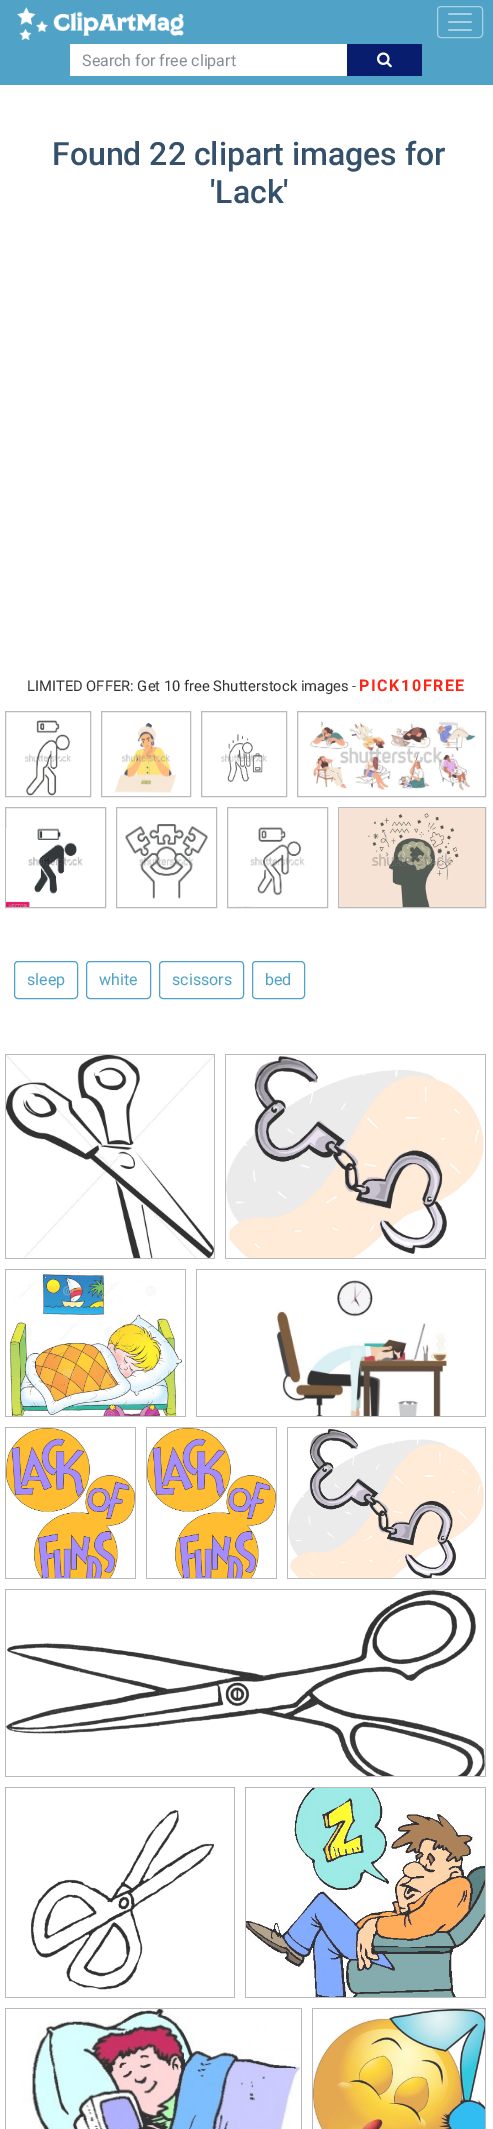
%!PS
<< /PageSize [493 2129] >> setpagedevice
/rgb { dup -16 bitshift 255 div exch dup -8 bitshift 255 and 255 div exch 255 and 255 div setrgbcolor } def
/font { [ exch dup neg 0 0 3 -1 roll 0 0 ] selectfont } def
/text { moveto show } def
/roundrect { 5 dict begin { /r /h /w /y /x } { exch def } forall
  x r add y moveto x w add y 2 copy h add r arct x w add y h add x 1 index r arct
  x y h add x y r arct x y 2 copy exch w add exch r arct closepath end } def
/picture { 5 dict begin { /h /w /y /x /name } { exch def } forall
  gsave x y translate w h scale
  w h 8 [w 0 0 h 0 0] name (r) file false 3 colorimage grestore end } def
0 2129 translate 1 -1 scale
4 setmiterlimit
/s1 { /Roboto-Regular 16 font 16#868E96 rgb } def
/s2 { /Roboto-Medium 32 font 16#34506B rgb } def
/s3 { /Roboto-Regular 14.75 font 16#323232 rgb } def
/s4 { /Roboto-Regular 14.75 font 16#34506B rgb } def
/s5 { /Roboto-Regular 16 font 16#50A3C7 rgb } def
16#FFFFFF rgb
0 0 493 2129 rectfill
16#50A3C7 rgb
0 0 493 85 rectfill
16#A8D1E3 rgb
437.5 6.5 45 31 3.5 roundrect stroke
(pic1.raw) 448 13 24 18 picture
(pic2.raw) 17 7 167 34 picture
16#FFFFFF rgb
70 44 277 32 rectfill
s1
(Search for free clipart) 82 66 text
16#091D6E rgb
347 44 75 32 rectfill
(pic3.raw) 377 52 15 16 picture
s2
(Found 22 clipart images for) 52 165 text
('Lack') 210 203 text
s3
(LIMITED OFFER: Get 10 free Shutterstock images) 27 691 text
s4
(-) 352 691 text
/Roboto-Bold 16 font
16#FF2414 rgb
359 691 moveto 1.6 0 (PICK10FREE) ashow
16#BABABA rgb
5.5 711.5 85 85 rectstroke
(pic4.raw) 25 720 46 76 picture
101.5 711.5 89 85 rectstroke
(pic5.raw) 114 722 63 71 picture
201.5 711.5 85 85 rectstroke
(pic6.raw) 221 734 46 48 picture
297.5 711.5 188 85 rectstroke
(pic7.raw) 310 721 165 70 picture
5.5 807.5 100 100 rectstroke
(pic8.raw) 6 828 77 79 picture
116.5 807.5 100 100 rectstroke
(pic9.raw) 125 824 83 75 picture
227.5 807.5 100 100 rectstroke
(pic10.raw) 236 826 69 81 picture
338.5 807.5 147 100 rectstroke
(pic11.raw) 339 808 146 99 picture
16#50A3C7 rgb
14.5 961.5 63 37 3.5 roundrect stroke
s5
(sleep) 27 985 text
86.5 961.5 64 37 3.5 roundrect stroke
(white) 99 985 text
159.5 961.5 84 37 3.5 roundrect stroke
(scissors) 172 985 text
252.5 961.5 52 37 3.5 roundrect stroke
(bed) 265 985 text
16#BABABA rgb
5 1258 210 1 rectfill
5 1054 210 1 rectfill
214 1054 1 204 rectfill
5 1054 1 204 rectfill
(pic12.raw) 6 1055 208 203 picture
225 1258 261 1 rectfill
225 1054 261 1 rectfill
485 1054 1 204 rectfill
225 1054 1 204 rectfill
(pic13.raw) 226 1055 258 203 picture
5 1416 181 1 rectfill
5 1269 181 1 rectfill
185 1269 1 147 rectfill
5 1269 1 147 rectfill
(pic14.raw) 9 1274 176 142 picture
196 1416 290 1 rectfill
196 1269 290 1 rectfill
485 1269 1 147 rectfill
196 1269 1 147 rectfill
(pic15.raw) 276 1280 172 136 picture
5 1578 131 1 rectfill
5 1427 131 1 rectfill
135 1427 1 151 rectfill
5 1427 1 151 rectfill
(pic16.raw) 6 1428 129 150 picture
146 1578 131 1 rectfill
146 1427 131 1 rectfill
276 1427 1 151 rectfill
146 1427 1 151 rectfill
(pic17.raw) 147 1428 129 150 picture
287 1578 199 1 rectfill
287 1427 199 1 rectfill
485 1427 1 151 rectfill
287 1427 1 151 rectfill
(pic18.raw) 288 1428 196 150 picture
5 1776 481 1 rectfill
5 1589 481 1 rectfill
485 1589 1 187 rectfill
5 1589 1 187 rectfill
(pic19.raw) 6 1590 479 186 picture
5 1997 230 1 rectfill
5 1787 230 1 rectfill
234 1787 1 210 rectfill
5 1787 1 210 rectfill
(pic20.raw) 30 1809 185 181 picture
245 1997 241 1 rectfill
245 1787 241 1 rectfill
485 1787 1 210 rectfill
245 1787 1 210 rectfill
(pic21.raw) 246 1788 239 209 picture
5 2008 297 1 rectfill
301 2008 1 121 rectfill
5 2008 1 121 rectfill
(pic22.raw) 22 2009 279 120 picture
312 2008 174 1 rectfill
485 2008 1 121 rectfill
312 2008 1 121 rectfill
(pic23.raw) 313 2009 172 120 picture
showpage
